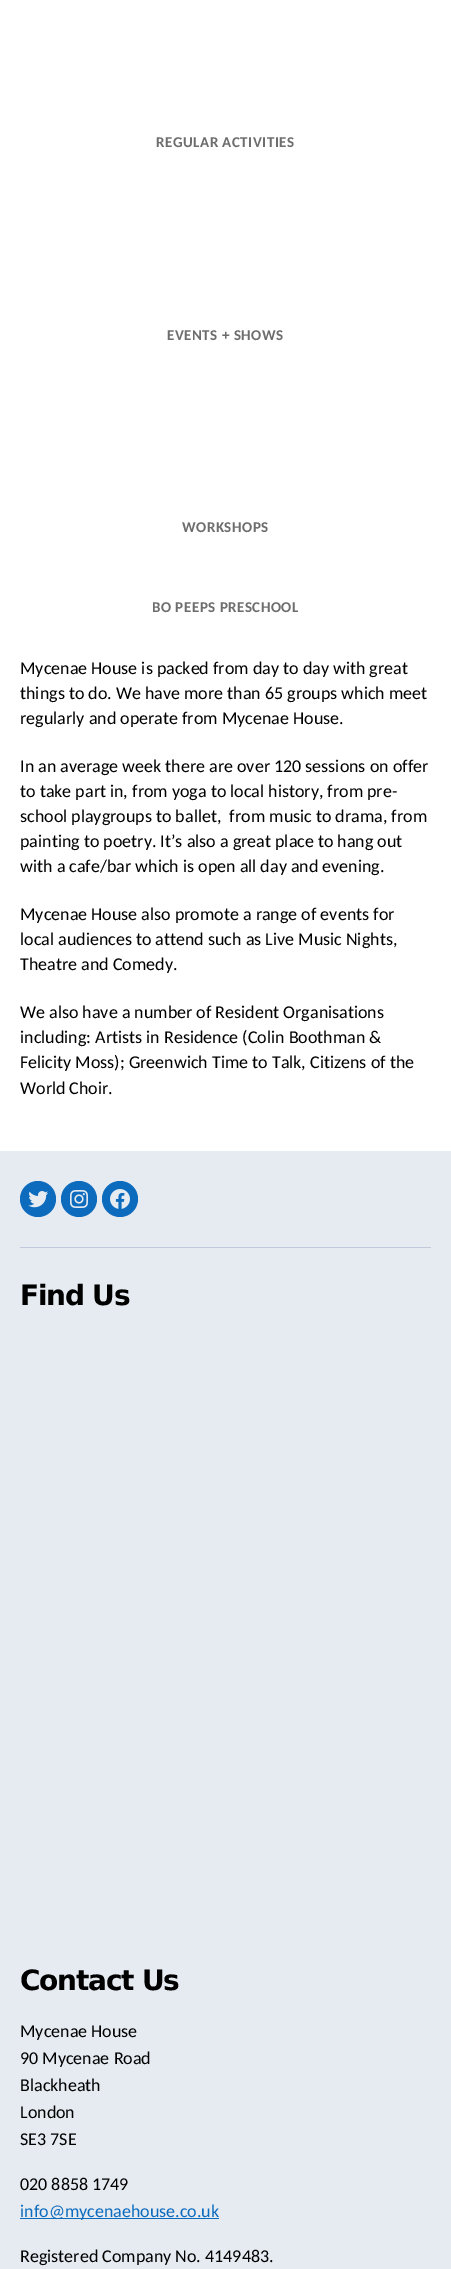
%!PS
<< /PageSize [451 2269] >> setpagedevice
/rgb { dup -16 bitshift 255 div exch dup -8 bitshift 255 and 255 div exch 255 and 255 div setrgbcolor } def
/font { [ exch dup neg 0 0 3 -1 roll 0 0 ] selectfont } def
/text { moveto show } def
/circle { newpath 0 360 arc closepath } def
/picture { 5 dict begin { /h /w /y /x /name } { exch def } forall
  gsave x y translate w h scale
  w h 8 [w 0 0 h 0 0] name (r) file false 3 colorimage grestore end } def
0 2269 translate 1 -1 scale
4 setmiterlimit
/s1 { /Carlito-Regular 18 font 16#000000 rgb } def
/s2 { /Carlito-Regular 18 font 16#0D6BBE rgb } def
16#FFFFFF rgb
0 0 451 2269 rectfill
/Carlito-Bold 15 font
16#6D6D6D rgb
156 147 moveto 0.5 0 (REGULAR ACTIVITIES) ashow
167 340 moveto 0.5 0 (EVENTS + SHOWS) ashow
182 532 moveto 0.5 0 (WORKSHOPS) ashow
152 612 moveto 0.5 0 (BO PEEPS PRESCHOOL) ashow
s1
(Mycenae House is packed from day to day with great) 20 674 text
(things to do. We have more than 65 groups which meet) 20 699 text
(regularly and operate from Mycenae House.) 20 724 text
(In an average week there are over 120 sessions on offer) 20 772 text
(to take part in, from yoga to local history, from pre-) 20 797 text
(school playgroups to ballet,  from music to drama, from) 20 822 text
(painting to poetry. It’s also a great place to hang out) 20 847 text
(with a cafe/bar which is open all day and evening.) 20 872 text
(Mycenae House also promote a range of events for) 20 920 text
(local audiences to attend such as Live Music Nights,) 20 945 text
(Theatre and Comedy.) 20 970 text
(We also have a number of Resident Organisations) 20 1018 text
(including: Artists in Residence \(Colin Boothman &) 20 1043 text
(Felicity Moss\); Greenwich Time to Talk, Citizens of the) 20 1068 text
(World Choir.) 20 1094 text
16#E6EBF2 rgb
0 1151 451 1118 rectfill
16#C1C9DB rgb
20 1247 411 1 rectfill
16#0D6BBE rgb
38 1199 18 circle fill
(pic1.raw) 28 1191 20 17 picture
79 1199 18 circle fill
(pic2.raw) 70 1190 18 18 picture
120 1199 18 circle fill
(pic3.raw) 110 1189 20 20 picture
/DejaVuSans-Bold 28 font
16#000000 rgb
20 1305 moveto -1.25 0 (Find Us) ashow
20 1990 moveto -1.25 0 (Contact Us) ashow
s1
(Mycenae House) 20 2037 text
(90 Mycenae Road) 20 2064 text
(Blackheath) 20 2091 text
(London) 20 2118 text
(SE3 7SE) 20 2145 text
(020 8858 1749) 20 2190 text
16#0D6BBE rgb
20 2218 199 1 rectfill
(info@mycenaehouse.co.uk) 20 2217 text
s1
(Registered Company No. 4149483.) 20 2262 text
showpage
